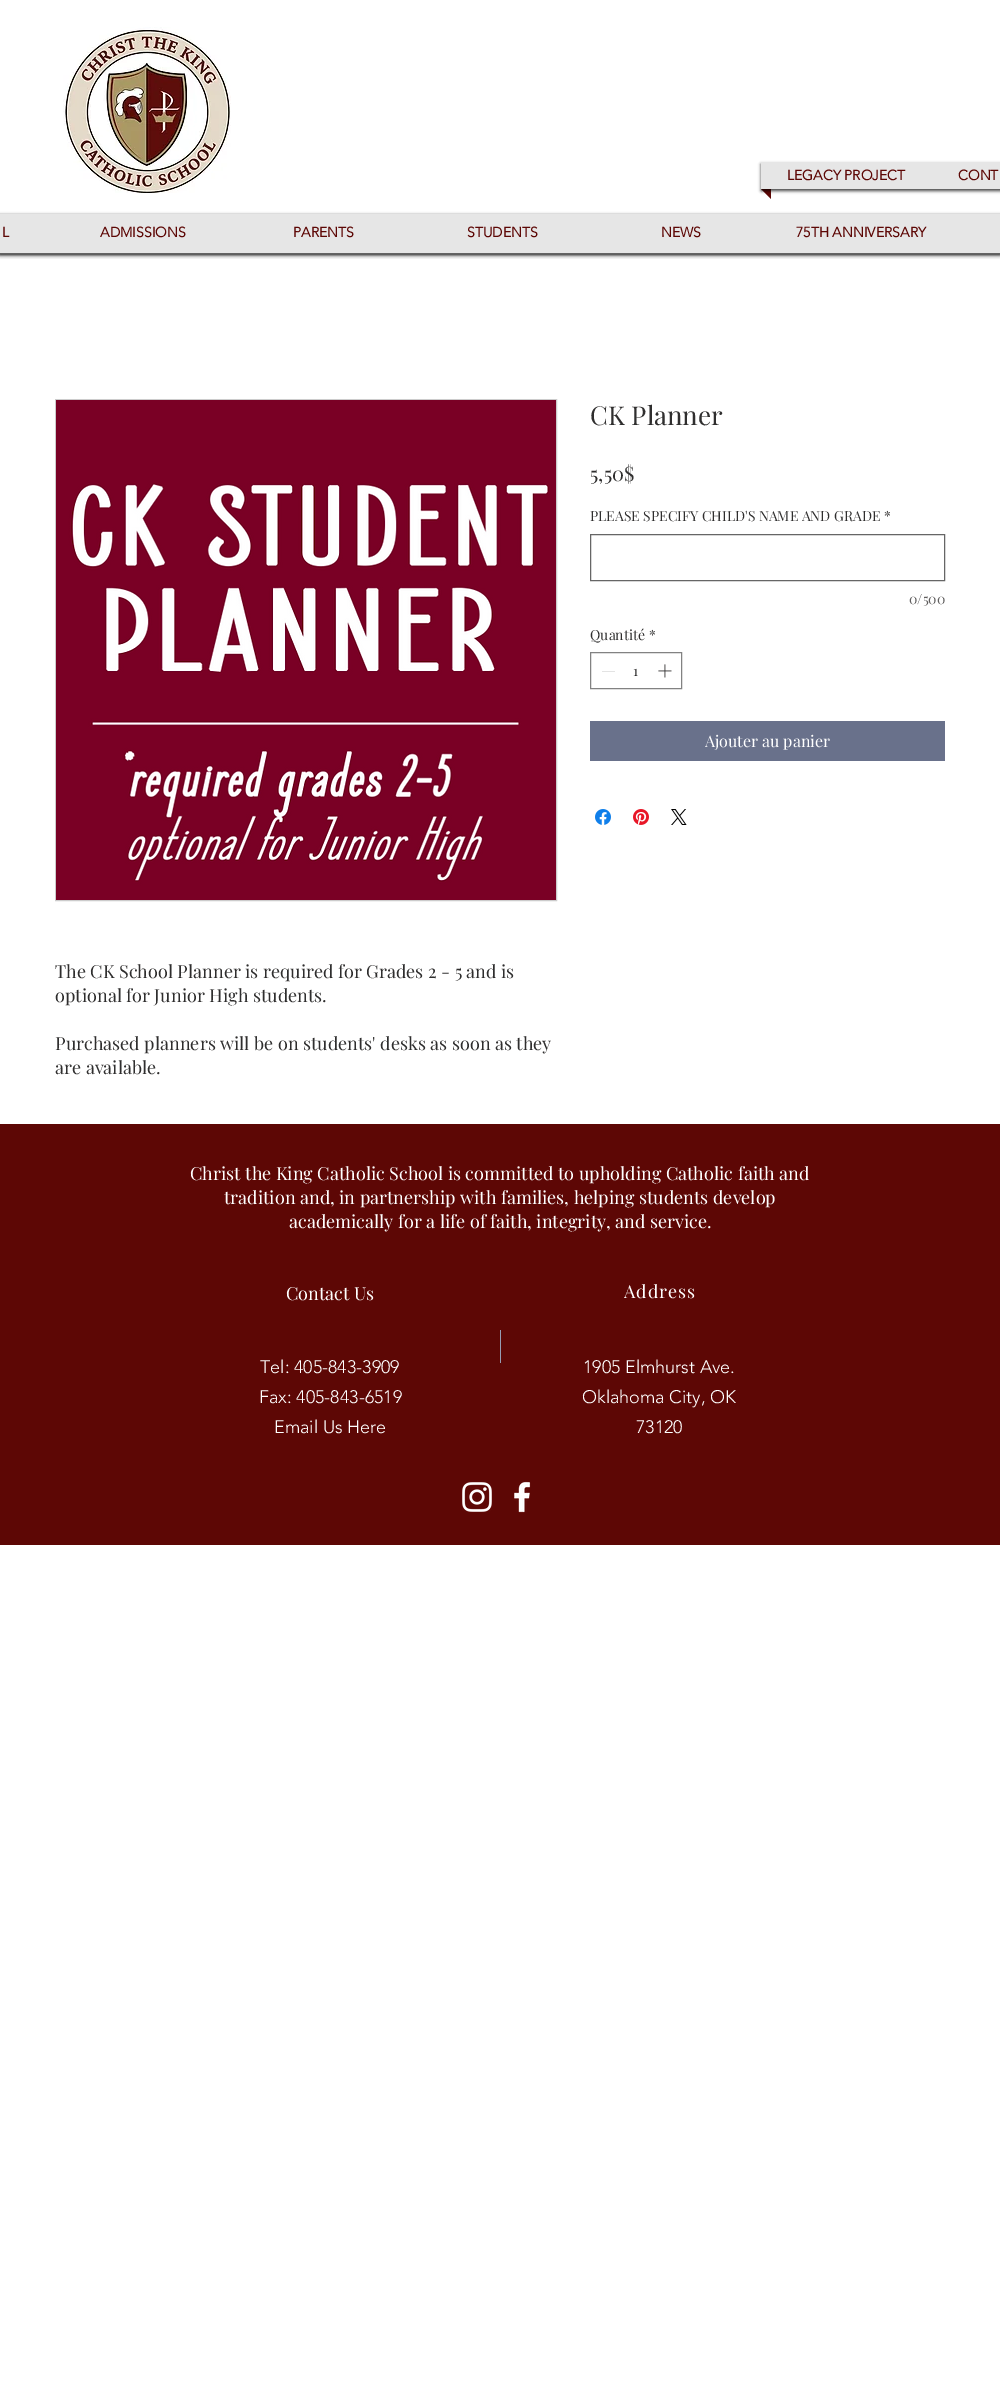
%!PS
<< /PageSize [1000 2381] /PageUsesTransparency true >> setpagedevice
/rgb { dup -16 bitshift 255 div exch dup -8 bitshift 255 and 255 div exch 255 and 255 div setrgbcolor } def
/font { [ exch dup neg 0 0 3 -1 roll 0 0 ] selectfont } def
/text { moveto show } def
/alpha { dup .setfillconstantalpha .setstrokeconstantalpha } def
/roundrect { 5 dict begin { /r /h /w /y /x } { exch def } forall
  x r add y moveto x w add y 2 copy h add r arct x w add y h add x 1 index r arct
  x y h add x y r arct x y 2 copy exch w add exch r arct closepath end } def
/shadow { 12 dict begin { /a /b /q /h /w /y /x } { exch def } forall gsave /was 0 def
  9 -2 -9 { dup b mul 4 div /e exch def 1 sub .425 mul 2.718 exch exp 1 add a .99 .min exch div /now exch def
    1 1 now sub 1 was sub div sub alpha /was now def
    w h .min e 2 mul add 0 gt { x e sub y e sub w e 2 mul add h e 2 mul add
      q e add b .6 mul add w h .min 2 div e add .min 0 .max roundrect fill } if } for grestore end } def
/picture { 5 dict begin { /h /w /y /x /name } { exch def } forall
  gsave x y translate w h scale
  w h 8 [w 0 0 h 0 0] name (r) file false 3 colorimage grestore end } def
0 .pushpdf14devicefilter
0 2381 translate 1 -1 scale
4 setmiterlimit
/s1 { /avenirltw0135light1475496-Bold 14 font 16#5D0705 rgb } def
/s2 { /PlayfairDisplay-Regular 26 font 16#2F2E2E rgb } def
/s3 { /PlayfairDisplay-Regular 20 font 16#2F2E2E rgb } def
/s4 { /PlayfairDisplay-Regular 14 font 16#2F2E2E rgb } def
/s5 { /PlayfairDisplay-Regular 14 font 16#605E5E rgb } def
/s6 { /PlayfairDisplay-Regular 16 font 16#FFFFFF rgb } def
/s7 { /PlayfairDisplay-Regular 18 font 16#2F2E2E rgb } def
/s8 { /PlayfairDisplay-Regular 18 font 16#FFFFFF rgb } def
/s9 { /avenirltw0135light1475496-Light 18 font 16#FFFFFF rgb } def
16#FFFFFF rgb
0 0 1000 2381 rectfill
gsave
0 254 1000 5 rectclip
16#000000 rgb
0 0 1000 254 0 2.5 0.7 shadow
grestore
(pic1.raw) 63 27 168 166 picture
16#5D0705 rgb
761 189 moveto 771 189 lineto 771 199 lineto closepath fill
16#000000 rgb
761 164 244 27 0 1.5 0.7 shadow
16#E6E6E6 rgb
761 162 239 27 rectfill
s1
(LEGACY PROJECT) 787 180 text
(CONT) 958 180 text
16#000000 rgb
-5 215 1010 40 0 1.5 0.7 shadow
16#E6E6E6 rgb
0 214 1000 39 rectfill
s1
(L) 2 237 text
(ADMISSIONS) 100 237 text
(PARENTS) 293 237 text
(STUDENTS) 467 237 text
(NEWS) 661 237 text
(75TH ANNIVERSARY) 796 237 text
s2
(CK Planner) 590 425 text
s3
(5,50$) 590 481 text
s4
(PLEASE SPECIFY CHILD'S NAME AND GRADE) 590 521 text
(*) 884 521 text
16#666666 rgb
590.5 534.5 354 46 rectstroke
s5
(0/500) 909 604 text
s4
(Quantité) 590 640 text
(*) 649 640 text
16#828282 rgb
590.5 652.5 91 36 rectstroke
16#E3E3E3 rgb
602 671 13 1 rectfill
s4
(1) 633 676 text
(pic2.raw) 658 664 14 14 picture
16#69718B rgb
590 721 355 40 rectfill
s6
(Ajouter au panier) 705 747 text
(pic3.raw) 595 809 16 16 picture
(pic4.raw) 633 809 16 16 picture
(pic5.raw) 671 809 16 16 picture
16#CCCCCC rgb
55.5 399.5 501 501 rectstroke
(pic6.raw) 56 400 500 500 picture
s7
(The CK School Planner is required for Grades 2 - 5 and is) 55 978 text
(optional for Junior High students.) 55 1002 text
(Purchased planners will be on students' desks as soon as they) 55 1050 text
(are available.) 55 1074 text
16#5D0705 rgb
0 1124 1000 421 rectfill
s8
(Christ the King Catholic School is committed to upholding Catholic faith and) 190 1180 text
(tradition and, in partnership with families, helping students develop) 224 1204 text
(academically for a life of faith, integrity, and service.) 289 1228 text
(Contact Us) 286 1300 text
624 1298 moveto 1 0 (Address) ashow
16#959CB2 rgb
500 1330 1 33 rectfill
s9
(Tel: 405-843-3909) 260 1373 text
(Fax: 405-843-6519) 259 1403 text
(Email Us Here) 274 1433 text
(1905 Elmhurst Ave.) 583 1373 text
(Oklahoma City, OK) 582 1403 text
(73120) 636 1433 text
(pic7.raw) 462 1482 30 30 picture
(pic8.raw) 514 1481 17 32 picture
.poppdf14devicefilter showpage
